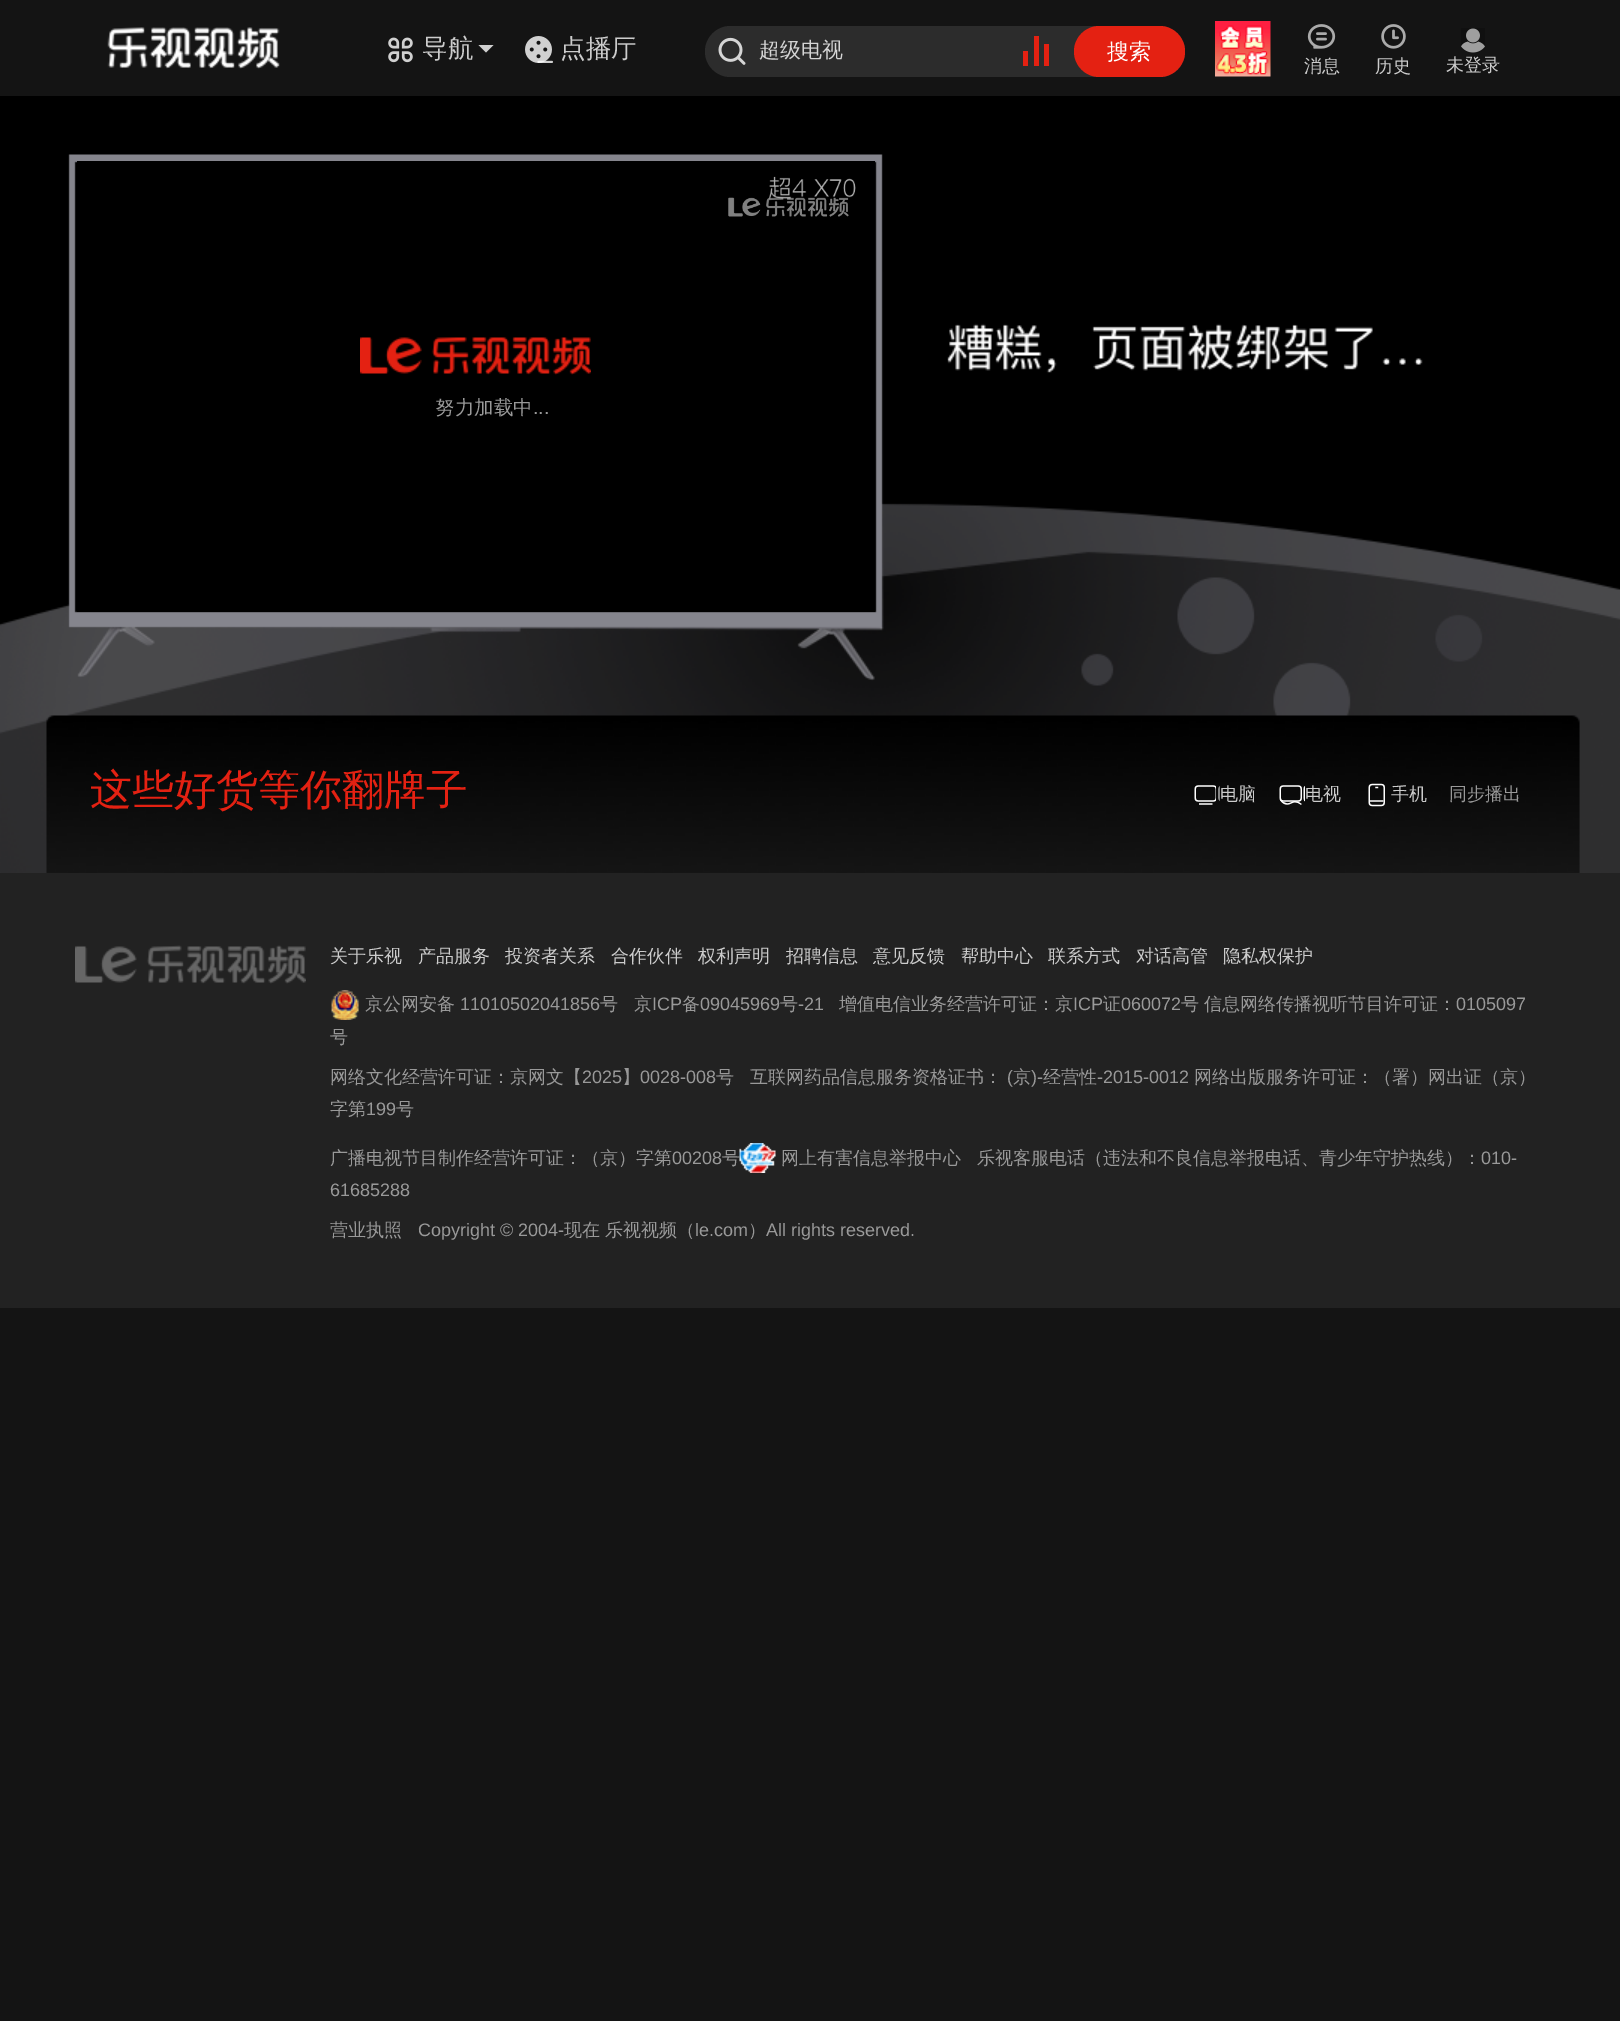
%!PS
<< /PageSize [1620 2021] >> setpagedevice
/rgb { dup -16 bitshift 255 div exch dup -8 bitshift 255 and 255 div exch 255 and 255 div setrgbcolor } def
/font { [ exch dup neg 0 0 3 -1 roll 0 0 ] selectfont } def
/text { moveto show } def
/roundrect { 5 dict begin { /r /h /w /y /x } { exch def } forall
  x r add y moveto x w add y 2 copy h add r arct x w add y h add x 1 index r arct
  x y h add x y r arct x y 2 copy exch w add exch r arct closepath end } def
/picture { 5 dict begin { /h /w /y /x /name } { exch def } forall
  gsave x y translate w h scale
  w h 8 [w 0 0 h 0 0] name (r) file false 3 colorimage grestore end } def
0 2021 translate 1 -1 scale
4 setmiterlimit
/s1 { /WenQuanYiZenHei-Medium 25.5 font 16#CCCCCC rgb } def
/s2 { /WenQuanYiZenHei-Medium 21 font 16#D5D5D5 rgb } def
/s3 { /WenQuanYiZenHei-Medium 22 font 16#FFFFFF rgb } def
/s4 { /WenQuanYiZenHei-Medium 18 font 16#CCCCCC rgb } def
/s5 { /WenQuanYiZenHei-Medium 19.5 font 16#999999 rgb } def
/s6 { /LiberationSans-Regular 19.5 font 16#999999 rgb } def
/s7 { /WenQuanYiZenHei-Medium 42 font 16#E42112 rgb } def
/s8 { /WenQuanYiZenHei-Medium 18 font 16#999999 rgb } def
/s9 { /LiberationSans-Regular 18 font 16#999999 rgb } def
16#141414 rgb
0 0 1620 2021 rectfill
(pic1.raw) 107 27 173 42 picture
(pic2.raw) 388 37 25 26 picture
s1
(导航) 422 57 text
16#D0D0D0 rgb
478.5 45 moveto 493.5 45 lineto 486 52.5 lineto closepath fill
(pic3.raw) 525 36 28 27 picture
s1
(点播厅) 560 57 text
16#2C2C2C rgb
705 26 480 51 25.5 roundrect fill
(pic4.raw) 718 37 28 28 picture
s2
(超级电视) 759 57 text
16#E42112 rgb
1023 51 5 15 rectfill
1034 36 5 30 rectfill
1044 44 5 22 rectfill
1074 26 111 51 25.5 roundrect fill
s3
(搜索) 1107 59 text
(pic5.raw) 1215 21 56 56 picture
(pic6.raw) 1307 24 29 25 picture
s4
(消息) 1304 72 text
(pic7.raw) 1381 24 25 25 picture
(历史) 1375 72 text
(pic8.raw) 1461 28 24 25 picture
(未登录) 1446 71 text
(pic9.raw) 0 96 1620 777 picture
16#000000 rgb
77 161 798 451 rectfill
(pic11.raw) 728 197 121 20 picture
(pic10.raw) 767 176 89 31 picture
(pic12.raw) 360 337 231 38 picture
s5
(努力加载中) 435 414 text
s6
(...) 533 414 text
s7
(这些好货等你翻牌子) 90 804 text
(pic13.raw) 1194 785 26 20 picture
s4
(电脑) 1220 800 text
(pic14.raw) 1279 785 26 20 picture
(电视) 1305 800 text
(pic15.raw) 1368 783 17 24 picture
(手机) 1391 800 text
s8
(同步播出) 1449 800 text
16#222222 rgb
0 873 1620 435 rectfill
(pic16.raw) 75 945 231 39 picture
s4
(关于乐视) 330 962 text
(产品服务) 418 962 text
(投资者关系) 505 962 text
(合作伙伴) 611 962 text
(权利声明) 698 962 text
(招聘信息) 786 962 text
(意见反馈) 873 962 text
(帮助中心) 961 962 text
(联系方式) 1048 962 text
(对话高管) 1136 962 text
(隐私权保护) 1223 962 text
(pic17.raw) 331 990 28 30 picture
s8
(京公网安备) 365 1010 text
s9
(11010502041856) 460 1010 text
s8
(号) 600 1010 text
(京) 634 1010 text
s9
(ICP) 652 1010 text
s8
(备) 682 1010 text
s9
(09045969) 700 1010 text
s8
(号) 780 1010 text
s9
(-21) 798 1010 text
s8
(增值电信业务经营许可证：京) 839 1010 text
s9
(ICP) 1073 1010 text
s8
(证) 1103 1010 text
s9
(060072) 1121 1010 text
s8
(号) 1181 1010 text
(信息网络传播视听节目许可证：) 1204 1010 text
s9
(0105097) 1456 1010 text
s8
(号) 330 1043 text
(网络文化经营许可证：京网文【) 330 1083 text
s9
(2025) 582 1083 text
s8
(】) 622 1083 text
s9
(0028-008) 640 1083 text
s8
(号) 716 1083 text
(互联网药品信息服务资格证书：) 750 1083 text
s9
(\() 1007 1083 text
s8
(京) 1013 1083 text
s9
(\)-) 1031 1083 text
s8
(经营性) 1043 1083 text
s9
(-2015-0012) 1097 1083 text
s8
(网络出版服务许可证：（署）网出证（京）) 1194 1083 text
(字第) 330 1115 text
s9
(199) 366 1115 text
s8
(号) 396 1115 text
(广播电视节目制作经营许可证：（京）字第) 330 1164 text
s9
(00208) 672 1164 text
s8
(号) 722 1164 text
(pic18.raw) 739 1143 37 30 picture
(网上有害信息举报中心) 781 1164 text
(乐视客服电话（违法和不良信息举报电话、青少年守护热线）：) 977 1164 text
s9
(010-) 1481 1164 text
(61685288) 330 1196 text
s8
(营业执照) 330 1236 text
s9
(Copyright © 2004-) 418 1236 text
s8
(现在) 564 1236 text
(乐视视频（) 605 1236 text
s9
(le.com) 695 1236 text
s8
(）) 748 1236 text
s9
(All rights reserved.) 766 1236 text
showpage
